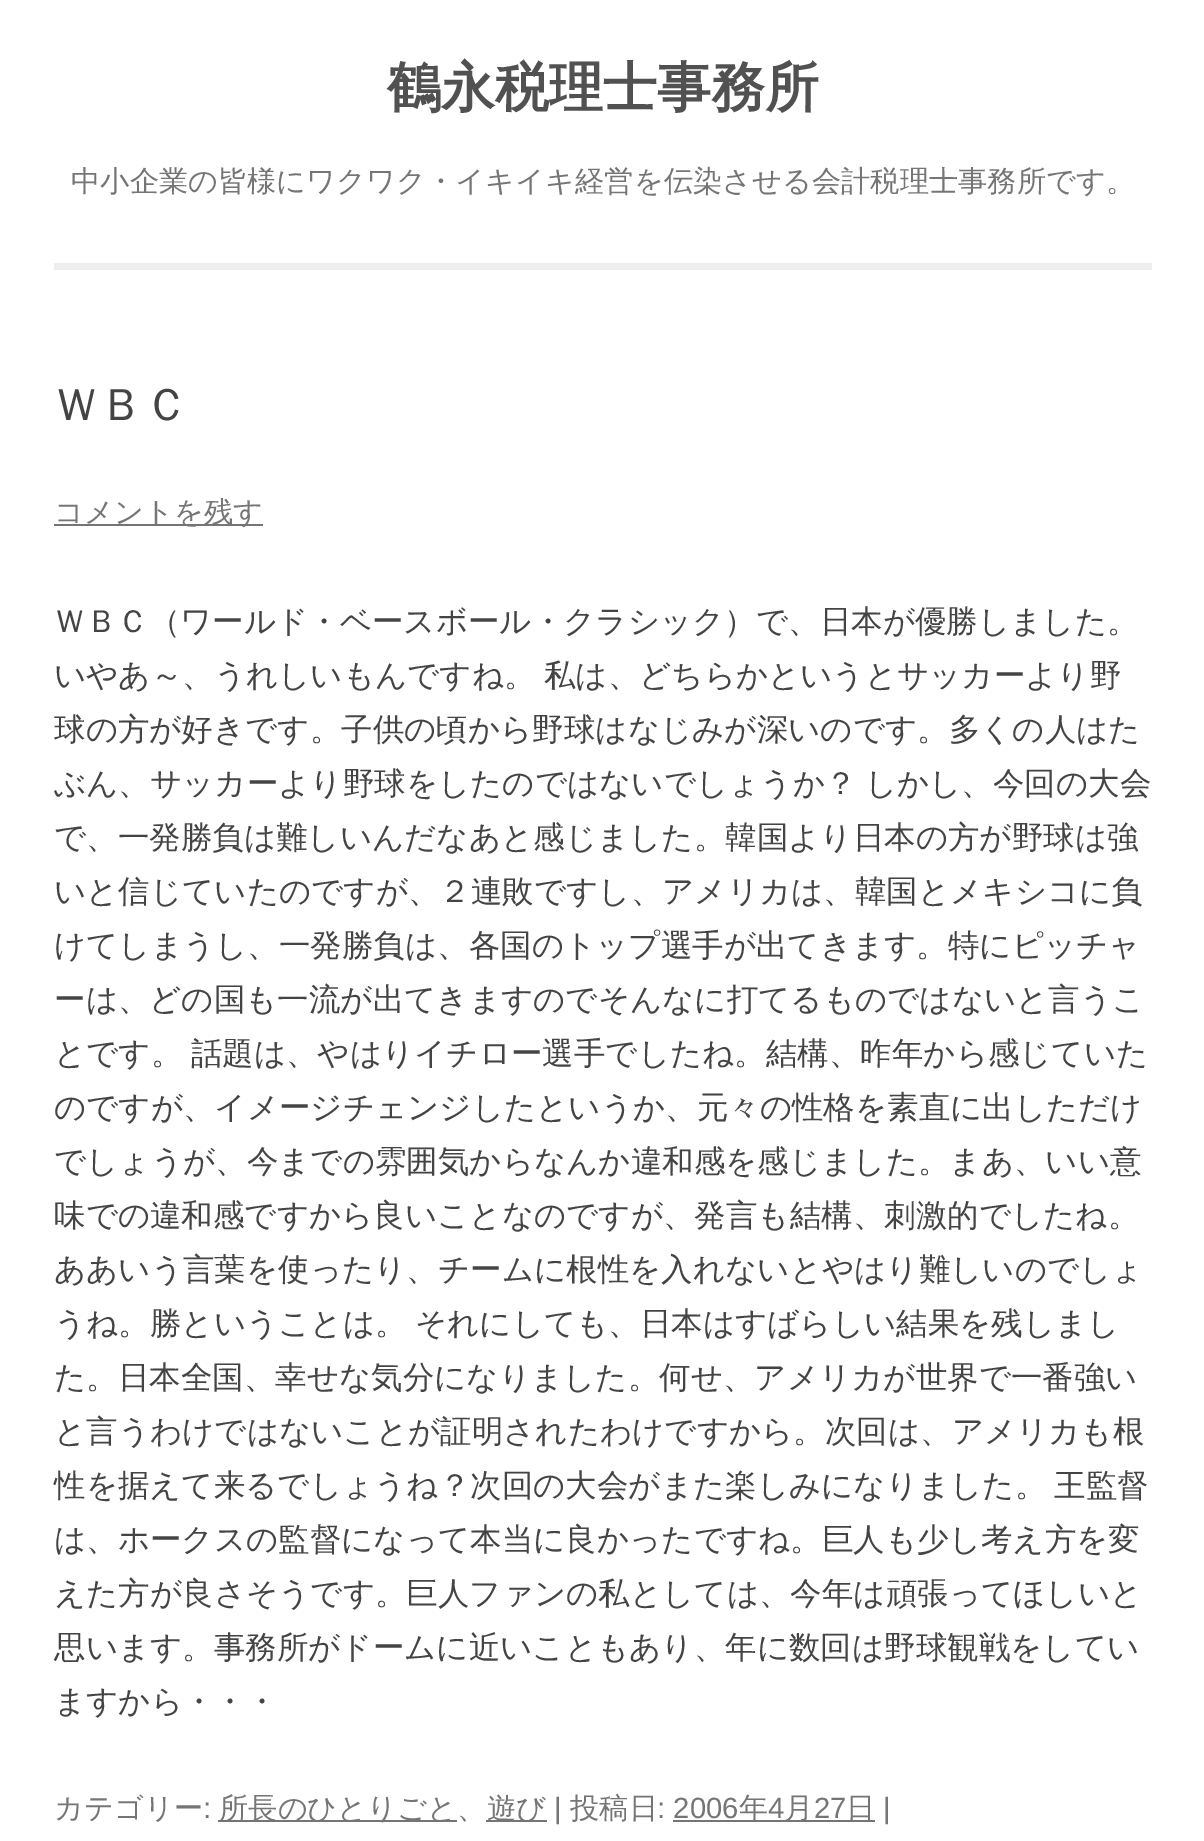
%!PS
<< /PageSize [1204 1841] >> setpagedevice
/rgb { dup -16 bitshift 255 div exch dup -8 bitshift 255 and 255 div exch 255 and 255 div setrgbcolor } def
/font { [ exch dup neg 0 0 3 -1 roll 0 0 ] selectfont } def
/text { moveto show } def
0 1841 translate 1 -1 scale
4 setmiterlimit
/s1 { /WenQuanYiZenHei-Bold 54 font 16#515151 rgb } def
/s2 { /WenQuanYiZenHei-Medium 29.25 font 16#757575 rgb } def
/s3 { /WenQuanYiZenHei-Medium 45 font 16#444444 rgb } def
/s4 { /WenQuanYiZenHei-Medium 31.5 font 16#444444 rgb } def
/s5 { /LiberationSans-Regular 29.25 font 16#757575 rgb } def
16#FFFFFF rgb
0 0 1204 1841 rectfill
s1
(鶴永税理士事務所) 387 106 text
s2
(中小企業の皆様にワクワク・イキイキ経営を伝染させる会計税理士事務所です。) 71 191 text
16#EEEEEE rgb
54 263 1098 7 rectfill
s3
(ＷＢＣ) 54 420 text
16#757575 rgb
54 524 209 2 rectfill
s2
(コメントを残す) 54 522 text
s4
(ＷＢＣ（ワールド・ベースボール・クラシック）で、日本が優勝しました。) 54 632 text
54 686 moveto -1 0 32 (いやあ～、うれしいもんですね。 私は、どちらかというとサッカーより野) widthshow
(球の方が好きです。子供の頃から野球はなじみが深いのです。多くの人はた) 54 740 text
54 794 moveto -1 0 32 (ぶん、サッカーより野球をしたのではないでしょうか？ しかし、今回の大会) widthshow
(で、一発勝負は難しいんだなあと感じました。韓国より日本の方が野球は強) 54 848 text
(いと信じていたのですが、２連敗ですし、アメリカは、韓国とメキシコに負) 54 902 text
(けてしまうし、一発勝負は、各国のトップ選手が出てきます。特にピッチャ) 54 956 text
(ーは、どの国も一流が出てきますのでそんなに打てるものではないと言うこ) 54 1010 text
54 1064 moveto -1 0 32 (とです。 話題は、やはりイチロー選手でしたね。結構、昨年から感じていた) widthshow
(のですが、イメージチェンジしたというか、元々の性格を素直に出しただけ) 54 1118 text
(でしょうが、今までの雰囲気からなんか違和感を感じました。まあ、いい意) 54 1172 text
(味での違和感ですから良いことなのですが、発言も結構、刺激的でしたね。) 54 1226 text
(ああいう言葉を使ったり、チームに根性を入れないとやはり難しいのでしょ) 54 1280 text
54 1334 moveto -1 0 32 (うね。勝ということは。 それにしても、日本はすばらしい結果を残しまし) widthshow
(た。日本全国、幸せな気分になりました。何せ、アメリカが世界で一番強い) 54 1388 text
(と言うわけではないことが証明されたわけですから。次回は、アメリカも根) 54 1442 text
54 1496 moveto -1 0 32 (性を据えて来るでしょうね？次回の大会がまた楽しみになりました。 王監督) widthshow
(は、ホークスの監督になって本当に良かったですね。巨人も少し考え方を変) 54 1550 text
(えた方が良さそうです。巨人ファンの私としては、今年は頑張ってほしいと) 54 1604 text
(思います。事務所がドームに近いこともあり、年に数回は野球観戦をしてい) 54 1658 text
(ますから・・・) 54 1712 text
s2
(カテゴリー) 54 1818 text
s5
(:) 203 1818 text
218 1820 239 2 rectfill
s2
(所長のひとりごと、) 219 1818 text
486 1820 61 2 rectfill
(遊び) 487 1818 text
s5
(|) 554 1818 text
s2
(投稿日) 570 1818 text
s5
(: 2006) 657 1818 text
673 1820 202 2 rectfill
s2
(年) 739 1818 text
s5
(4) 768 1818 text
s2
(月) 784 1818 text
s5
(27) 814 1818 text
s2
(日) 846 1818 text
s5
(|) 883 1818 text
showpage
